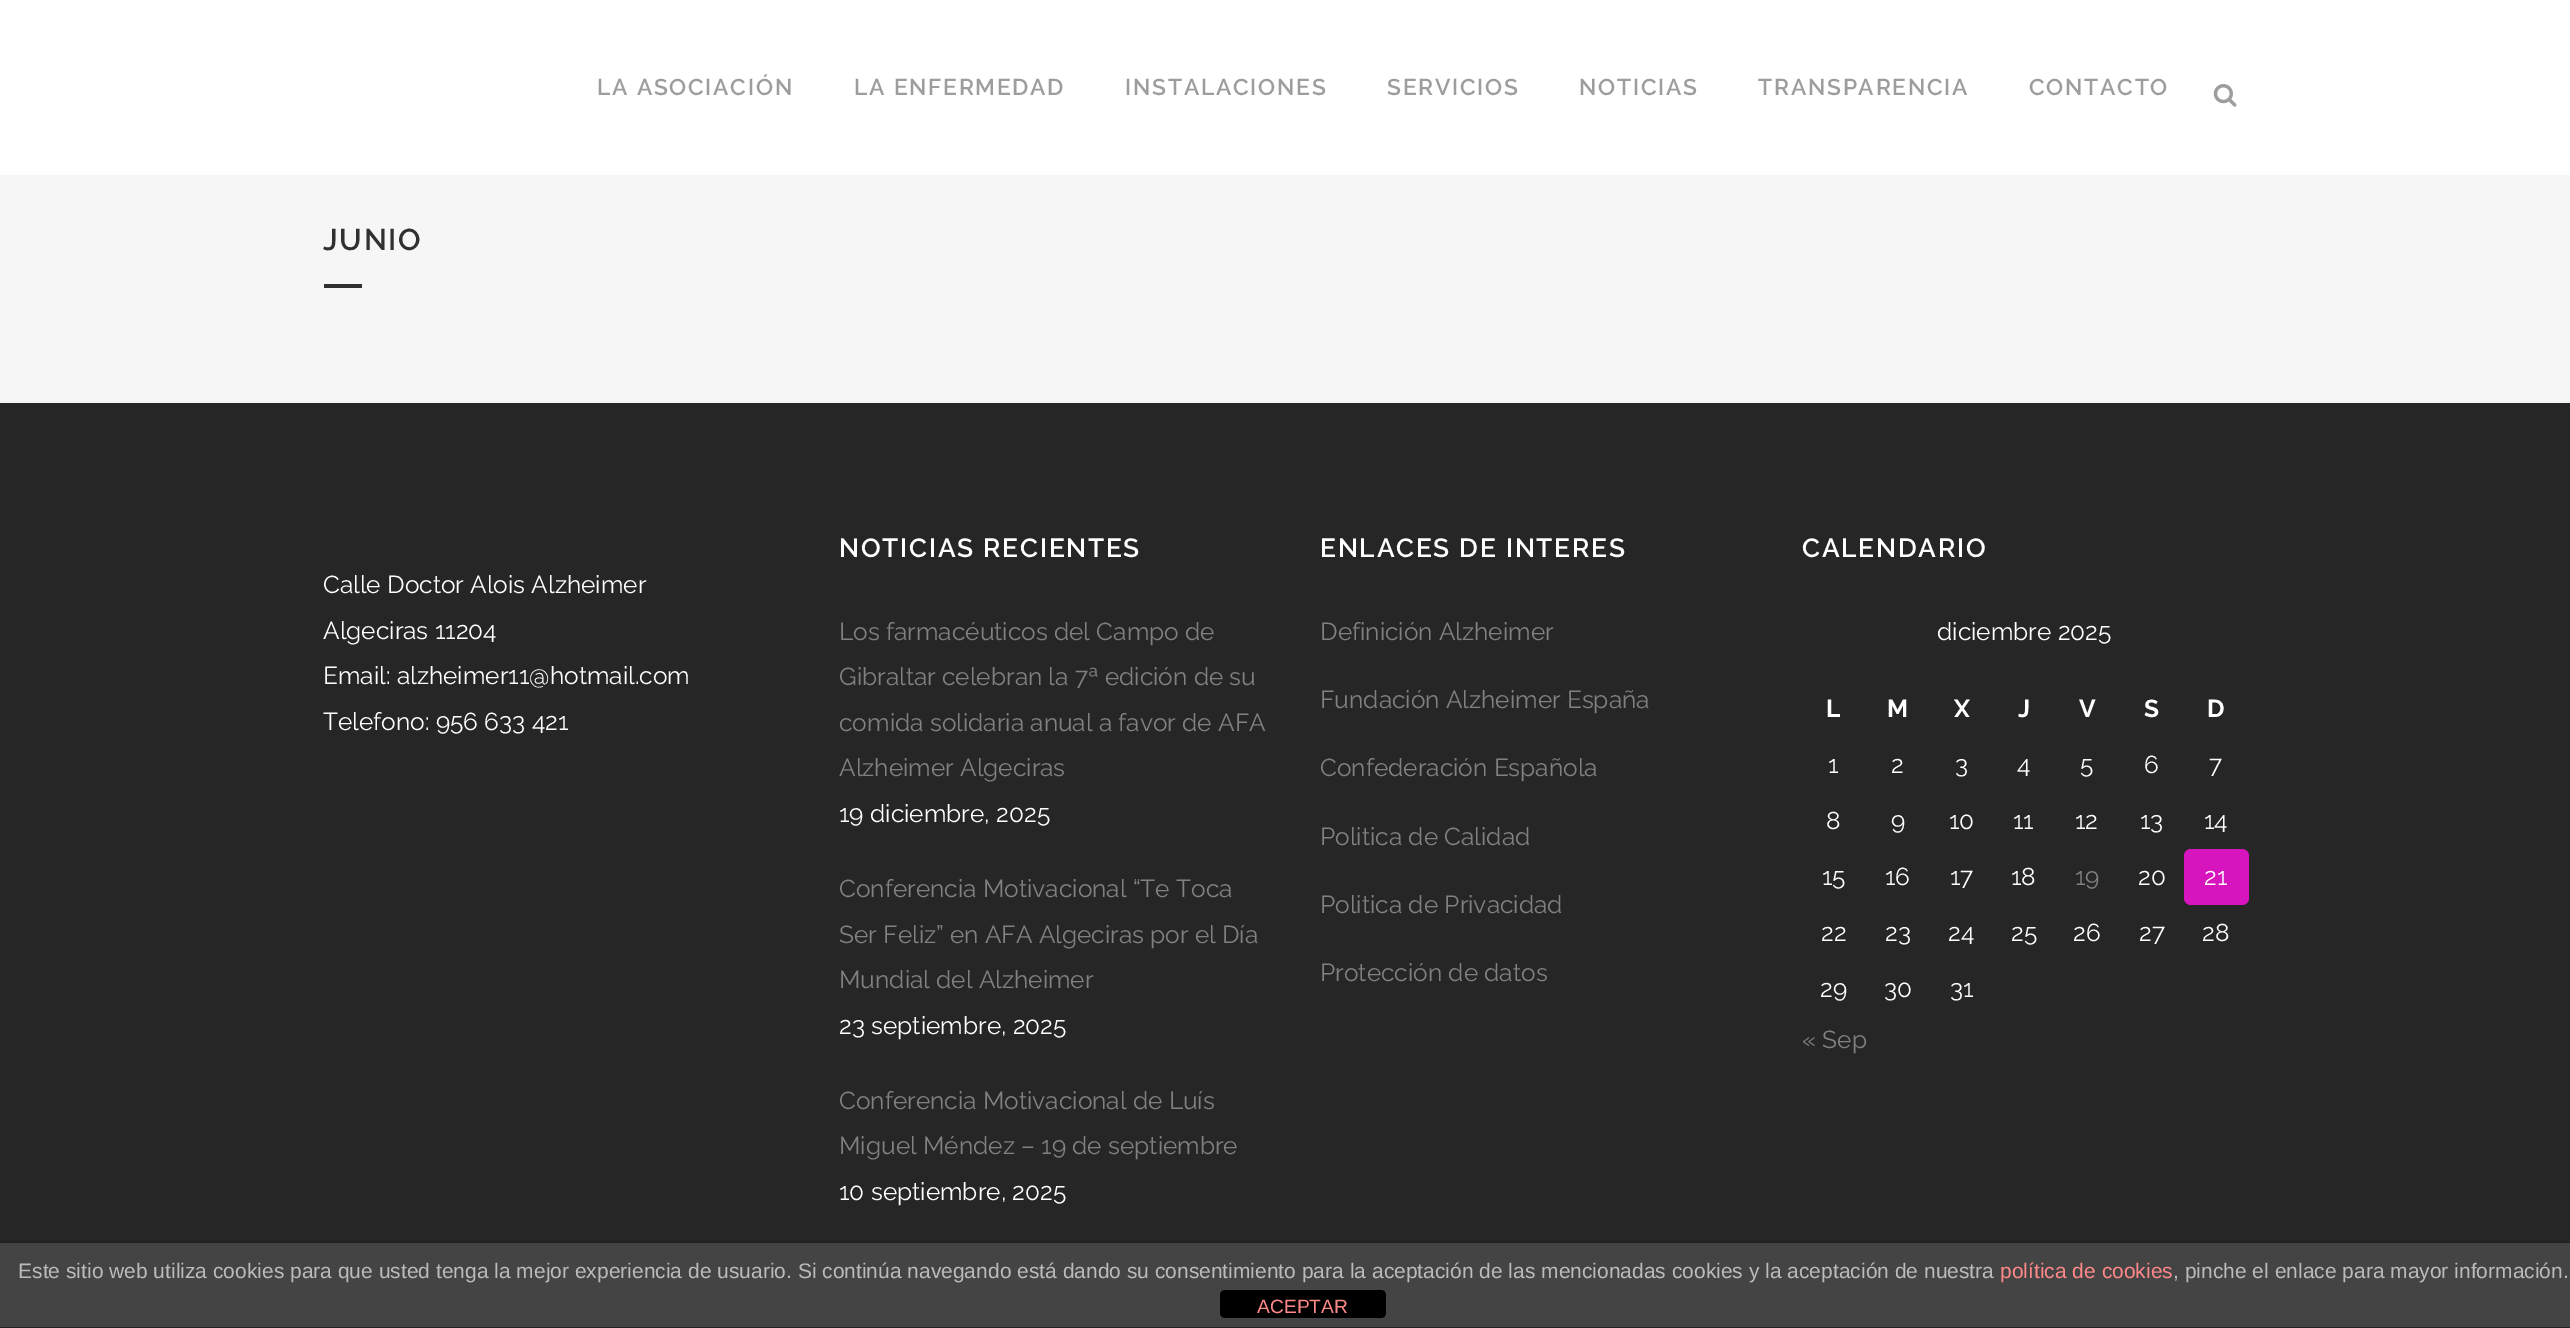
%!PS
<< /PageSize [2570 1328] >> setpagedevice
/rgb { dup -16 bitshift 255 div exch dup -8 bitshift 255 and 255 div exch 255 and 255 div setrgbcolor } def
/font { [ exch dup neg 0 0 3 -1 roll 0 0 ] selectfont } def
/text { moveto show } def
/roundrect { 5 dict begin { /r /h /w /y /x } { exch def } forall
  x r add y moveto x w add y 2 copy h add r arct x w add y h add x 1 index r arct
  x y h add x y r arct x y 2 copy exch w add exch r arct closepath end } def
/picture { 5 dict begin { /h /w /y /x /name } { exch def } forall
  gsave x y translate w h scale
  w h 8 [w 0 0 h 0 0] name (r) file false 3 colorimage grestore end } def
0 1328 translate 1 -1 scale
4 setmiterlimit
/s1 { /Raleway-Regular 24.5 font 16#FFFFFF rgb } def
/s2 { /Raleway-Regular 24.5 font 16#818181 rgb } def
/s3 { /Raleway-Bold 24.5 font 16#FFFFFF rgb } def
/s4 { /LiberationSans-Regular 21 font 16#BBBBBB rgb } def
/s5 { /LiberationSans-Regular 21 font 16#FF8888 rgb } def
/s6 { /LiberationSans-Regular 19.25 font 16#FF8888 rgb } def
16#F6F6F6 rgb
0 0 2570 1328 rectfill
16#FFFFFF rgb
0 0 2570 175 rectfill
/Raleway-SemiBold 22.75 font
16#9D9D9D rgb
597 95 moveto 1.75 0 (LA ASOCIACIÓN) ashow
854 95 moveto 1.75 0 (LA ENFERMEDAD) ashow
1125 95 moveto 1.75 0 (INSTALACIONES) ashow
1387 95 moveto 1.75 0 (SERVICIOS) ashow
1579 95 moveto 1.75 0 (NOTICIAS) ashow
1758 95 moveto 1.75 0 (TRANSPARENCIA) ashow
2029 95 moveto 1.75 0 (CONTACTO) ashow
(pic1.raw) 2213 84 24 23 picture
/Raleway-SemiBold 30 font
16#303030 rgb
323 250 moveto 1.75 0 (JUNIO) ashow
324 284 38 4 rectfill
16#262626 rgb
0 403 2570 838 rectfill
s1
(Calle Doctor Alois Alzheimer) 323 593 text
(Algeciras 11204) 323 639 text
(Email: alzheimer11@hotmail.com) 323 684 text
(Telefono: 956 633 421) 323 730 text
/Raleway-SemiBold 26.25 font
839 557 moveto 1.75 0 (NOTICIAS RECIENTES) ashow
s2
(Los farmacéuticos del Campo de) 839 640 text
(Gibraltar celebran la 7ª edición de su) 839 685 text
(comida solidaria anual a favor de AFA) 839 731 text
(Alzheimer Algeciras) 839 776 text
s1
(19 diciembre, 2025) 839 822 text
s2
(Conferencia Motivacional “Te Toca) 839 897 text
(Ser Feliz” en AFA Algeciras por el Día) 839 943 text
(Mundial del Alzheimer) 839 988 text
s1
(23 septiembre, 2025) 839 1034 text
s2
(Conferencia Motivacional de Luís) 839 1109 text
(Miguel Méndez – 19 de septiembre) 839 1154 text
s1
(10 septiembre, 2025) 839 1200 text
/Raleway-SemiBold 26.25 font
1320 557 moveto 1.75 0 (ENLACES DE INTERES) ashow
s2
(Definición Alzheimer) 1320 640 text
(Fundación Alzheimer España) 1320 708 text
(Confederación Española) 1320 776 text
(Politica de Calidad) 1320 845 text
(Politica de Privacidad) 1320 913 text
(Protección de datos) 1320 981 text
/Raleway-SemiBold 26.25 font
16#FFFFFF rgb
1802 557 moveto 1.75 0 (CALENDARIO) ashow
s1
(diciembre 2025) 1937 640 text
s3
(L) 1826 717 text
(M) 1887 717 text
(X) 1954 717 text
(J) 2018 717 text
(V) 2079 717 text
(S) 2144 717 text
(D) 2207 717 text
s1
(1) 1828 773 text
(2) 1891 773 text
(3) 1955 773 text
(4) 2017 773 text
(5) 2080 773 text
(6) 2144 773 text
(7) 2209 773 text
(8) 1826 829 text
(9) 1891 829 text
(10) 1949 829 text
(11) 2013 829 text
(12) 2075 829 text
(13) 2140 829 text
(14) 2204 829 text
(15) 1822 885 text
(16) 1885 885 text
(17) 1950 885 text
(18) 2011 885 text
s2
(19) 2075 885 text
s1
(20) 2138 885 text
16#D615BF rgb
2184 849 65 56 7 roundrect fill
s1
(21) 2204 885 text
(22) 1821 941 text
(23) 1885 941 text
(24) 1948 941 text
(25) 2011 941 text
(26) 2073 941 text
(27) 2139 941 text
(28) 2202 941 text
(29) 1820 997 text
(30) 1884 997 text
(31) 1950 997 text
s2
(« Sep) 1802 1048 text
16#444444 rgb
0 1243 2570 84 rectfill
16#222222 rgb
0 1241 2570 2 rectfill
0 1327 2570 1 rectfill
s4
(Este sitio web utiliza cookies para que usted tenga la mejor experiencia de usuario. Si continúa navegando está dando su consentimiento para la aceptación de las mencionadas cookies y la aceptación de nuestra) 18 1278 text
s5
(política de cookies) 2000 1278 text
s4
(, pinche el enlace para mayor información.) 2173 1278 text
16#000000 rgb
1220 1290 166 28 5 roundrect fill
s6
(ACEPTAR) 1257 1313 text
showpage
